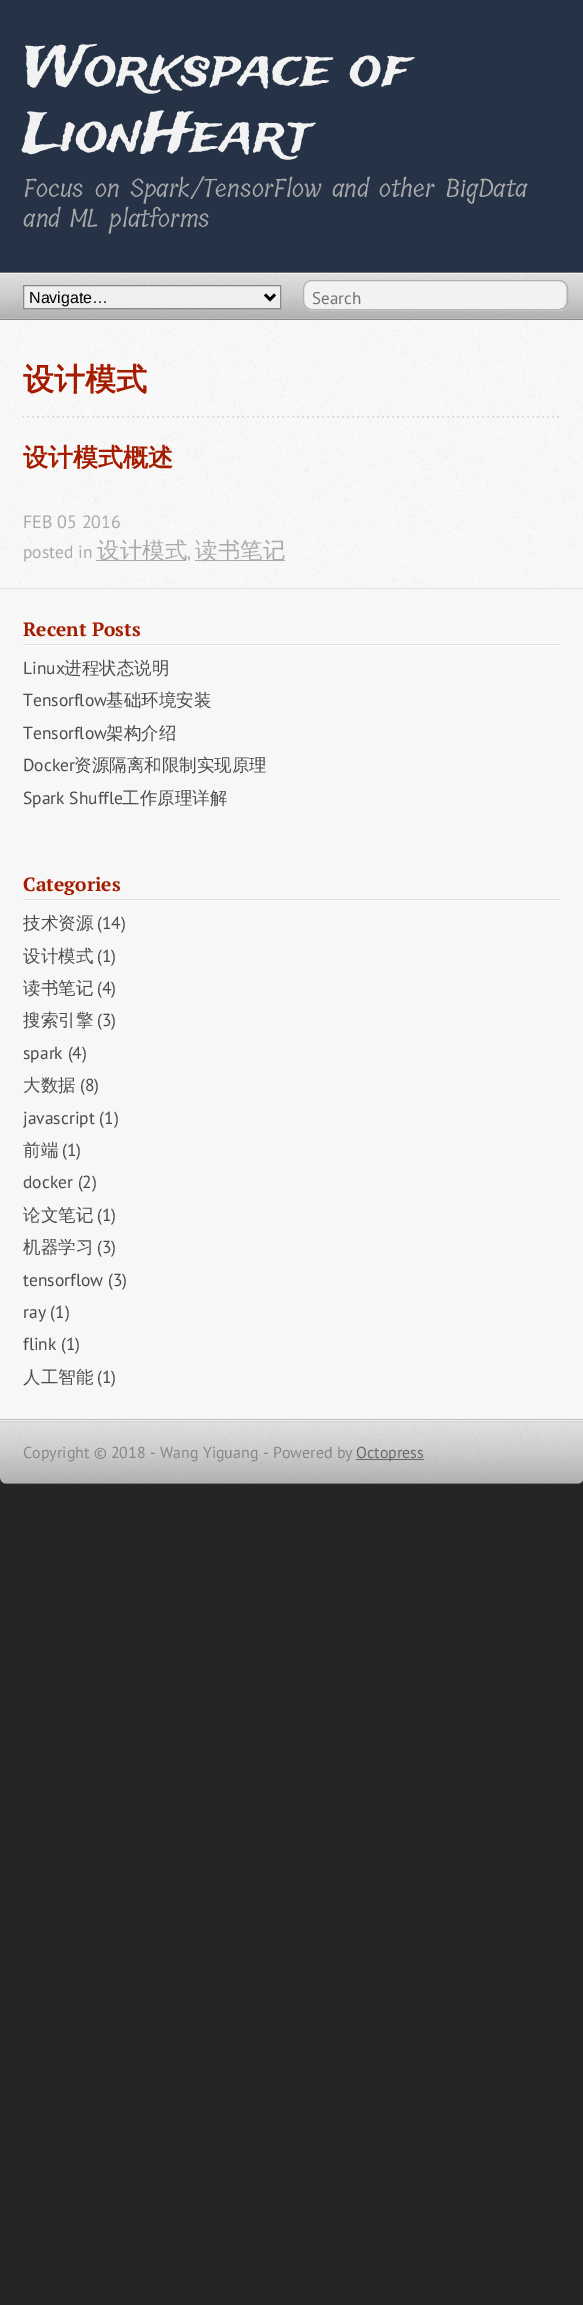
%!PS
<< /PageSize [583 2305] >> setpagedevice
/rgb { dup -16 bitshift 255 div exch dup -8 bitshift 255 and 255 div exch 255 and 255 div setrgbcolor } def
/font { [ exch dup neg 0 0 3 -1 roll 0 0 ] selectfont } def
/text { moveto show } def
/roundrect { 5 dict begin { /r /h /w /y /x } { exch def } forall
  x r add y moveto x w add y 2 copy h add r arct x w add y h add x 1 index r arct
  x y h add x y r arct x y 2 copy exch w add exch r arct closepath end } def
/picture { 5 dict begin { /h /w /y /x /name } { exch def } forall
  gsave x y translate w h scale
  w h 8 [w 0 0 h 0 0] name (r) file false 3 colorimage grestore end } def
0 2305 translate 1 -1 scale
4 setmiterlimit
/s1 { /TradeWinds-Regular 55 font 16#F2F2F2 rgb } def
/s2 { /Tillana-Regular 25 font 16#AAAAAA rgb } def
/s3 { /LiberationSans-Regular 16 font 16#000000 rgb } def
/s4 { /PTSans-Regular 17 font 16#757575 rgb } def
/s5 { /WenQuanYiZenHei-Bold 31 font 16#A61C00 rgb } def
/s6 { /WenQuanYiZenHei-Bold 25 font 16#A61C00 rgb } def
/s7 { /PTSans-Regular 18 font 16#AAAAAA rgb } def
/s8 { /PTSans-Regular 17.5 font 16#AAAAAA rgb } def
/s9 { /WenQuanYiZenHei-Medium 22.5 font 16#AAAAAA rgb } def
/s10 { /PTSerif-Bold 19.25 font 16#A61C00 rgb } def
/s11 { /PTSans-Regular 17.5 font 16#4C4C4C rgb } def
/s12 { /WenQuanYiZenHei-Medium 17.5 font 16#4C4C4C rgb } def
/s13 { /PTSans-Regular 16 font 16#888888 rgb } def
/s14 { /PTSans-Regular 16 font 16#6B6B6B rgb } def
16#252525 rgb
0 0 583 2305 rectfill
16#263347 rgb
0 0 583 273 rectfill
s1
(Workspace of) 23 85 text
(LionHeart) 23 151 text
s2
(Focus on Spark/TensorFlow and other BigData) 23 197 text
(and ML platforms) 23 227 text
(pic1.raw) 0 272 583 47 picture
16#F2F2F2 rgb
0 273 583 1 rectfill
16#8C8C8C rgb
0 319 583 1 rectfill
16#EFEFEF rgb
23.5 285.5 moveto 280.5 285.5 lineto 280.5 308.5 lineto 23.5 308.5 lineto closepath gsave fill grestore
16#888888 rgb
stroke
16#000000 rgb
2.5 setlinewidth
265 294.5 moveto 270 299.5 lineto 275 294.5 lineto stroke
s3
(Navigate…) 29 303 text
16#D1D1D1 rgb
305 307 moveto 306 309 309 311 312 311 curveto 559 311 lineto 564 311 568 307 568 302 curveto 568 290 lineto 567 286 lineto 568 302 lineto 568 306 564 310 559 310 curveto 311 310 lineto 308 310 306 309 305 307 curveto closepath fill
16#F2F2F2 rgb
304 281 262 28 8 roundrect fill
16#B3B3B3 rgb
1 setlinewidth
303.5 280.5 264 29 8.5 roundrect stroke
s4
(Search) 312 304 text
16#BFBFBF rgb
0 1419 583 1 rectfill
16#F8F8F8 rgb
0 320 583 268 rectfill
(pic2.raw) 0 320 583 268 picture
(pic3.raw) 22 416 537 2 picture
s5
(设计模式) 23 390 text
s6
(设计模式概述) 23 466 text
s7
(FEB 05 2016) 23 528 text
s8
(posted in) 23 558 text
96 560 90 1 rectfill
s9
(设计模式) 97 558 text
s8
(,) 187 558 text
195 560 90 1 rectfill
s9
(读书笔记) 195 558 text
16#F7F7F7 rgb
0 589 583 830 rectfill
16#E0E0E0 rgb
0 588 583 1 rectfill
16#FFFFFF rgb
23 645 537 1 rectfill
16#E0E0E0 rgb
23 644 537 1 rectfill
s10
(Recent Posts) 23 636 text
s11
(Linux) 23 674 text
s12
(进程状态说明) 64 674 text
s11
(Tensorflow) 23 706 text
s12
(基础环境安装) 106 706 text
s11
(Tensorflow) 23 739 text
s12
(架构介绍) 106 739 text
s11
(Docker) 23 771 text
s12
(资源隔离和限制实现原理) 74 771 text
s11
(Spark Shuffle) 23 804 text
s12
(工作原理详解) 122 804 text
16#FFFFFF rgb
23 900 537 1 rectfill
16#E0E0E0 rgb
23 899 537 1 rectfill
s10
(Categories) 23 891 text
s12
(技术资源) 23 929 text
s11
(\(14\)) 97 929 text
s12
(设计模式) 23 962 text
s11
(\(1\)) 97 962 text
s12
(读书笔记) 23 994 text
s11
(\(4\)) 97 994 text
s12
(搜索引擎) 23 1026 text
s11
(\(3\)) 97 1026 text
(spark \(4\)) 23 1059 text
s12
(大数据) 23 1091 text
s11
(\(8\)) 80 1091 text
(javascript \(1\)) 23 1124 text
s12
(前端) 23 1156 text
s11
(\(1\)) 62 1156 text
(docker \(2\)) 23 1188 text
s12
(论文笔记) 23 1221 text
s11
(\(1\)) 97 1221 text
s12
(机器学习) 23 1253 text
s11
(\(3\)) 97 1253 text
(tensorflow \(3\)) 23 1286 text
(ray \(1\)) 23 1318 text
(flink \(1\)) 23 1350 text
s12
(人工智能) 23 1383 text
s11
(\(1\)) 97 1383 text
(pic4.raw) 0 1421 583 63 picture
16#F2F2F2 rgb
0 1420 583 1 rectfill
s13
(Copyright © 2018 - Wang Yiguang - Powered by) 23 1458 text
16#6B6B6B rgb
356 1459 68 1 rectfill
(Octopress) 356 1458 text
showpage
